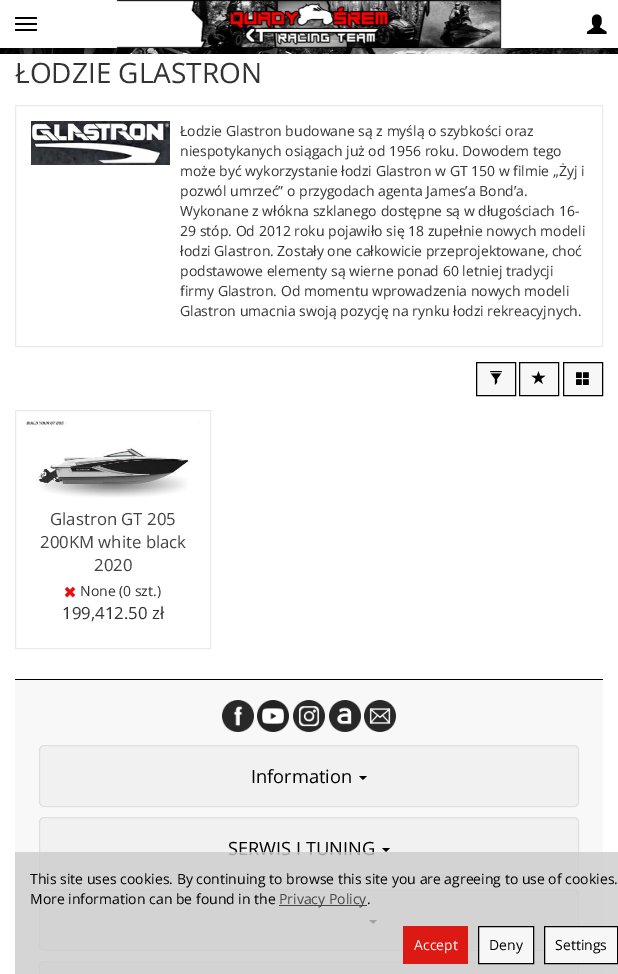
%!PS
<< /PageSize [618 974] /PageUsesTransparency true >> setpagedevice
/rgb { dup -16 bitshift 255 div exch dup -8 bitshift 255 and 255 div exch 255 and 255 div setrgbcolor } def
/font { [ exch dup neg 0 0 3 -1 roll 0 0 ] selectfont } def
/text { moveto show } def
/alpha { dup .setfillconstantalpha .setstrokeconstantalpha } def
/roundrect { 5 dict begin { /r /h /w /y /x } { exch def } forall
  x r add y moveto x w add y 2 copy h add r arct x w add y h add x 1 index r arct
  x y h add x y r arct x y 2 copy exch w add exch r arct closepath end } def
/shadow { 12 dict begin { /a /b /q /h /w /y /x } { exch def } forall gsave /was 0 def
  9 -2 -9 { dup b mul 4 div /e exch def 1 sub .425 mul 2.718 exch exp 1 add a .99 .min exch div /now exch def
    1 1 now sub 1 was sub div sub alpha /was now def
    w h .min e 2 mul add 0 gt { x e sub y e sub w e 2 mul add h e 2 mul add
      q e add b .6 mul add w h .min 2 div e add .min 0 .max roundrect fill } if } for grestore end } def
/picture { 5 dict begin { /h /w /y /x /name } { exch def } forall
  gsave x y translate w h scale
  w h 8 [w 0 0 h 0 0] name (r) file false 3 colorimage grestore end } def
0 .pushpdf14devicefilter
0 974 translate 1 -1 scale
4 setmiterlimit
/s1 { /OpenSans-Regular 28 font 16#333333 rgb } def
/s2 { /OpenSans-Regular 14 font 16#333333 rgb } def
/s3 { /OpenSans-Regular 16.75 font 16#444444 rgb } def
/s4 { /OpenSans-Regular 16.75 font 16#333333 rgb } def
/s5 { /OpenSans-Regular 18.25 font 16#000000 rgb } def
/s6 { /OpenSans-Regular 14 font 16#000000 rgb } def
/s7 { /OpenSans-Regular 14 font 16#444444 rgb } def
/s8 { /OpenSans-Regular 14 font 16#FFFFFF rgb } def
16#FFFFFF rgb
0 0 618 974 rectfill
(pic1.raw) 0 48 618 6 picture
gsave
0 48 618 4 rectclip
16#000000 rgb
0 2 618 48 0 1.5 0.25 shadow
grestore
16#000000 rgb
15 17 22 2 1 roundrect fill
15 23 22 2 1 roundrect fill
15 29 22 2 1 roundrect fill
(pic2.raw) 116 0 386 48 picture
(pic3.raw) 587 14 20 20 picture
s1
(ŁODZIE GLASTRON) 15 83 text
16#EAEAEA rgb
15.5 105.5 587 241 rectstroke
(pic4.raw) 31 121 139 44 picture
s2
(Łodzie Glastron budowane są z myślą o szybkości oraz) 180 136 text
(niespotykanych osiągach już od 1956 roku. Dowodem tego) 180 156 text
(może być wykorzystanie łodzi Glastron w GT 150 w filmie „Żyj i) 180 176 text
(pozwól umrzeć” o przygodach agenta James’a Bond’a.) 180 196 text
(Wykonane z włókna szklanego dostępne są w długościach 16-) 180 216 text
(29 stóp. Od 2012 roku pojawiło się 18 zupełnie nowych modeli) 180 236 text
(łodzi Glastron. Zostały one całkowicie przeprojektowane, choć) 180 256 text
(podstawowe elementy są wierne ponad 60 letniej tradycji) 180 276 text
(firmy Glastron. Od momentu wprowadzenia nowych modeli) 180 296 text
(Glastron umacnia swoją pozycję na rynku łodzi rekreacyjnych.) 180 316 text
16#F7F7F7 rgb
476.5 362.5 moveto 515.5 362.5 lineto 515.5 395.5 lineto 476.5 395.5 lineto closepath gsave fill grestore
16#000000 rgb
stroke
(pic5.raw) 490 371 12 14 picture
16#F7F7F7 rgb
519.5 362.5 moveto 558.5 362.5 lineto 558.5 395.5 lineto 519.5 395.5 lineto closepath gsave fill grestore
16#000000 rgb
stroke
(pic6.raw) 531 371 15 13 picture
16#F7F7F7 rgb
563.5 362.5 moveto 602.5 362.5 lineto 602.5 395.5 lineto 563.5 395.5 lineto closepath gsave fill grestore
16#000000 rgb
stroke
(pic7.raw) 576 372 13 13 picture
16#EAEAEA rgb
15.5 410.5 195 238 rectstroke
(pic8.raw) 26 421 174 77 picture
s3
(Glastron GT 205) 50 525 text
(200KM white black) 40 548 text
(2020) 94 571 text
(pic9.raw) 65 587 10 11 picture
s2
(None \(0 szt.\)) 80 596 text
s4
(199,412.50 zł) 62 619 text
16#F8F8F8 rgb
15 680 588 294 rectfill
16#000000 rgb
15 679 588 1 rectfill
(pic10.raw) 222 700 32 32 picture
(pic11.raw) 257 700 32 32 picture
(pic12.raw) 293 700 32 32 picture
(pic13.raw) 329 700 32 32 picture
(pic14.raw) 364 700 32 32 picture
16#F1F1F1 rgb
39 745 540 62 5 roundrect fill
0.07 alpha
16#000000 rgb
39.5 745.5 539 61 4.5 roundrect stroke
1 alpha
s5
(Information) 251 783 text
359 776 moveto 367 776 lineto 363 780 lineto closepath fill
16#F1F1F1 rgb
39 817 540 62 5 roundrect fill
0.07 alpha
16#000000 rgb
39.5 817.5 539 61 4.5 roundrect stroke
1 alpha
(SERWIS I TUNING) 228 855 text
382 848 moveto 390 848 lineto 386 852 lineto closepath fill
16#F1F1F1 rgb
39 889 540 62 5 roundrect fill
0.07 alpha
16#000000 rgb
39.5 889.5 539 61 4.5 roundrect stroke
1 alpha
369 920 moveto 377 920 lineto 373 924 lineto closepath fill
16#F1F1F1 rgb
39 961 540 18 5 roundrect fill
0.07 alpha
16#000000 rgb
39.5 961.5 539 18 4.5 roundrect stroke
0.8 alpha
16#CCCCCC rgb
15 852 603 122 rectfill
1 alpha
s6
(This site uses cookies. By continuing to browse this site you are agreeing to use of cookies.) 30 884 text
(More information can be found in the) 30 904 text
16#444444 rgb
279 905 88 1 rectfill
(Privacy Policy) 279 904 text
s6
(.) 367 904 text
16#DC1912 rgb
403 926 65 38 rectfill
s8
(Accept) 414 950 text
16#F7F7F7 rgb
478.5 926.5 moveto 533.5 926.5 lineto 533.5 963.5 lineto 478.5 963.5 lineto closepath gsave fill grestore
16#000000 rgb
stroke
(Deny) 489 950 text
16#F7F7F7 rgb
544.5 926.5 moveto 617.5 926.5 lineto 617.5 963.5 lineto 544.5 963.5 lineto closepath gsave fill grestore
16#000000 rgb
stroke
(Settings) 555 950 text
.poppdf14devicefilter showpage
